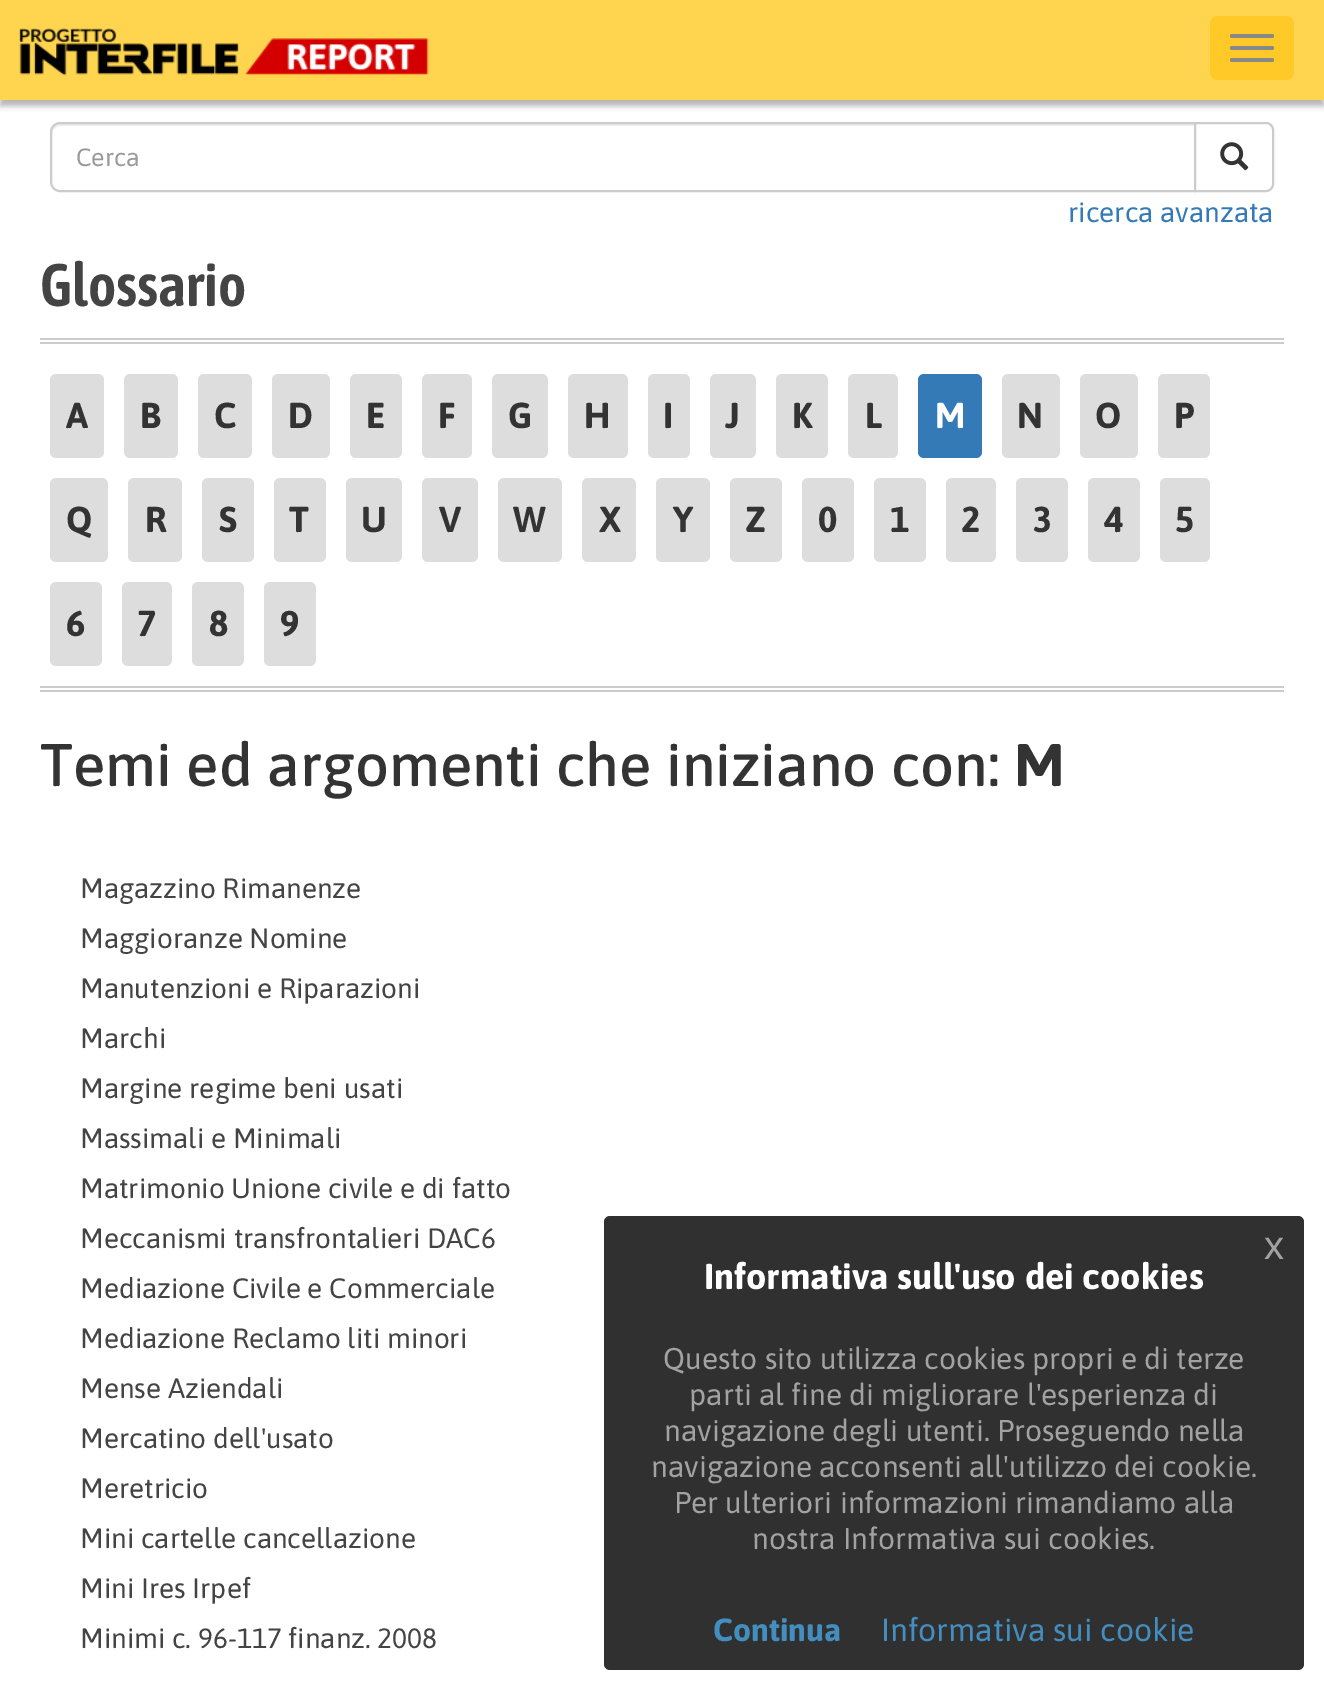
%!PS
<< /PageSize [1324 1685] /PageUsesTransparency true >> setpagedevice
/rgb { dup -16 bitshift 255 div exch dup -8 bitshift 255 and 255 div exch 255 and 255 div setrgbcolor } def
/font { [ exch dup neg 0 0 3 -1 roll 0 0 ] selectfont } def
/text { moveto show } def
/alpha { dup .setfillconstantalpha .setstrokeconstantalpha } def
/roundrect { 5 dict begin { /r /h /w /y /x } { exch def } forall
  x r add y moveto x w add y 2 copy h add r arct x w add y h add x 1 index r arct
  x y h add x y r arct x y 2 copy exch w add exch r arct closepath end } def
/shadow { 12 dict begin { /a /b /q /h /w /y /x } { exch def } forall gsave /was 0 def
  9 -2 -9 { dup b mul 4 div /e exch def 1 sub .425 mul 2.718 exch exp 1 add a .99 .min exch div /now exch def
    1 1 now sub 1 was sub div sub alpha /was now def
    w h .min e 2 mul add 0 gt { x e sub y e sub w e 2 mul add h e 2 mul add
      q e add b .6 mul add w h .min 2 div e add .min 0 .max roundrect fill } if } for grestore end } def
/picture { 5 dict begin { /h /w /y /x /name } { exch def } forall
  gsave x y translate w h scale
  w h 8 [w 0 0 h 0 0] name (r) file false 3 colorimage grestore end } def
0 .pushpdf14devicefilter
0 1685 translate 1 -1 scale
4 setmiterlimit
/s1 { /Asap-Regular 25 font 16#999999 rgb } def
/s2 { /Asap-Regular 28 font 16#337AB7 rgb } def
/s3 { /AsapCondensed-SemiBold 60 font 16#444444 rgb } def
/s4 { /Asap-Bold 36 font 16#333333 rgb } def
/s5 { /Asap-Bold 36 font 16#FFFFFF rgb } def
/s6 { /Asap-Medium 60 font 16#333333 rgb } def
/s7 { /Asap-Bold 60 font 16#333333 rgb } def
/s8 { /Asap-Regular 28 font 16#444444 rgb } def
/s9 { /LiberationSans-Regular 40 font 16#A2A2A2 rgb } def
/s10 { /Asap-Regular 30 font 16#A2A2A2 rgb } def
/s11 { /Asap-Bold 32 font 16#438DBF rgb } def
/s12 { /Asap-Regular 32 font 16#438DBF rgb } def
16#FFFFFF rgb
0 0 1324 1685 rectfill
16#000000 rgb
0 6 1324 100 0 3 0.3 shadow
16#FFD54F rgb
0 0 1324 100 rectfill
(pic1.raw) 19 28 410 48 picture
16#FFCA28 rgb
1210 16 84 64 8 roundrect fill
16#888888 rgb
1230 34 44 4 2 roundrect fill
1230 46 44 4 2 roundrect fill
1230 58 44 4 2 roundrect fill
16#ECECEC rgb
60 126 moveto 1194 126 lineto 1194 124 lineto 60 124 lineto 54 124 52 129 52 134 curveto 52 130 56 126 60 126 curveto closepath fill
16#CCCCCC rgb
2 setlinewidth
60 123 moveto 1195 123 lineto 1195 191 lineto 60 191 lineto 55 191 51 187 51 182 curveto 51 132 lineto 51 127 55 123 60 123 curveto closepath stroke
s1
(Cerca) 76 166 text
16#FFFFFF rgb
1195 123 moveto 1266 123 lineto 1270 123 1273 126 1273 130 curveto 1273 184 lineto 1273 188 1270 191 1266 191 curveto 1195 191 lineto closepath gsave fill grestore
16#CCCCCC rgb
stroke
(pic2.raw) 1220 142 29 29 picture
s2
(ricerca avanzata) 1068 222 text
s3
(Glossario) 40 306 text
16#CCCCCC rgb
40 338 1244 2 rectfill
40 342 1244 2 rectfill
16#DDDDDD rgb
50 374 54 84 6 roundrect fill
s4
(A) 66 428 text
16#DDDDDD rgb
124 374 54 84 6 roundrect fill
s4
(B) 140 428 text
16#DDDDDD rgb
198 374 54 84 6 roundrect fill
s4
(C) 214 428 text
16#DDDDDD rgb
272 374 58 84 6 roundrect fill
s4
(D) 288 428 text
16#DDDDDD rgb
350 374 52 84 6 roundrect fill
s4
(E) 366 428 text
16#DDDDDD rgb
422 374 50 84 6 roundrect fill
s4
(F) 438 428 text
16#DDDDDD rgb
492 374 56 84 6 roundrect fill
s4
(G) 508 428 text
16#DDDDDD rgb
568 374 60 84 6 roundrect fill
s4
(H) 584 428 text
16#DDDDDD rgb
648 374 42 84 6 roundrect fill
s4
(I) 663 428 text
16#DDDDDD rgb
710 374 46 84 6 roundrect fill
s4
(J) 725 428 text
16#DDDDDD rgb
776 374 52 84 6 roundrect fill
s4
(K) 792 428 text
16#DDDDDD rgb
848 374 50 84 6 roundrect fill
s4
(L) 865 428 text
16#337AB7 rgb
918 374 64 84 6 roundrect fill
s5
(M) 935 428 text
16#DDDDDD rgb
1002 374 58 84 6 roundrect fill
s4
(N) 1017 428 text
16#DDDDDD rgb
1080 374 58 84 6 roundrect fill
s4
(O) 1095 428 text
16#DDDDDD rgb
1158 374 52 84 6 roundrect fill
s4
(P) 1174 428 text
16#DDDDDD rgb
50 478 58 84 6 roundrect fill
s4
(Q) 66 532 text
16#DDDDDD rgb
128 478 54 84 6 roundrect fill
s4
(R) 145 532 text
16#DDDDDD rgb
202 478 52 84 6 roundrect fill
s4
(S) 219 532 text
16#DDDDDD rgb
274 478 52 84 6 roundrect fill
s4
(T) 289 532 text
16#DDDDDD rgb
346 478 56 84 6 roundrect fill
s4
(U) 361 532 text
16#DDDDDD rgb
422 478 56 84 6 roundrect fill
s4
(V) 439 532 text
16#DDDDDD rgb
498 478 64 84 6 roundrect fill
s4
(W) 513 532 text
16#DDDDDD rgb
582 478 54 84 6 roundrect fill
s4
(X) 599 532 text
16#DDDDDD rgb
656 478 54 84 6 roundrect fill
s4
(Y) 673 532 text
16#DDDDDD rgb
730 478 52 84 6 roundrect fill
s4
(Z) 745 532 text
16#DDDDDD rgb
802 478 52 84 6 roundrect fill
s4
(0) 818 532 text
16#DDDDDD rgb
874 478 52 84 6 roundrect fill
s4
(1) 890 532 text
16#DDDDDD rgb
946 478 50 84 6 roundrect fill
s4
(2) 961 532 text
16#DDDDDD rgb
1016 478 52 84 6 roundrect fill
s4
(3) 1033 532 text
16#DDDDDD rgb
1088 478 52 84 6 roundrect fill
s4
(4) 1104 532 text
16#DDDDDD rgb
1160 478 50 84 6 roundrect fill
s4
(5) 1175 532 text
16#DDDDDD rgb
50 582 52 84 6 roundrect fill
s4
(6) 66 636 text
16#DDDDDD rgb
122 582 50 84 6 roundrect fill
s4
(7) 137 636 text
16#DDDDDD rgb
192 582 52 84 6 roundrect fill
s4
(8) 209 636 text
16#DDDDDD rgb
264 582 52 84 6 roundrect fill
s4
(9) 280 636 text
16#CCCCCC rgb
40 686 1244 2 rectfill
40 690 1244 2 rectfill
s6
(Temi ed argomenti che iniziano con:) 40 786 text
s7
(M) 1014 786 text
s8
(Magazzino Rimanenze) 80 898 text
(Maggioranze Nomine) 80 948 text
(Manutenzioni e Riparazioni) 80 998 text
(Marchi) 80 1048 text
(Margine regime beni usati) 80 1098 text
(Massimali e Minimali) 80 1148 text
(Matrimonio Unione civile e di fatto) 80 1198 text
(Meccanismi transfrontalieri DAC6) 80 1248 text
(Mediazione Civile e Commerciale) 80 1298 text
(Mediazione Reclamo liti minori) 80 1348 text
(Mense Aziendali) 80 1398 text
(Mercatino dell'usato) 80 1448 text
(Meretricio) 80 1498 text
(Mini cartelle cancellazione) 80 1548 text
(Mini Ires Irpef) 80 1598 text
(Minimi c. 96-117 finanz. 2008) 80 1648 text
16#303030 rgb
604 1216 700 454 6 roundrect fill
s9
(x) 1264 1259 text
s5
(Informativa sull'uso dei cookies) 704 1289 text
s10
(Questo sito utilizza cookies propri e di terze) 663 1369 text
(parti al fine di migliorare l'esperienza di) 689 1405 text
(navigazione degli utenti. Proseguendo nella) 664 1441 text
(navigazione acconsenti all'utilizzo dei cookie.) 651 1477 text
(Per ulteriori informazioni rimandiamo alla) 674 1513 text
(nostra Informativa sui cookies.) 752 1549 text
s11
(Continua) 713 1641 text
s12
(Informativa sui cookie) 881 1641 text
.poppdf14devicefilter showpage
